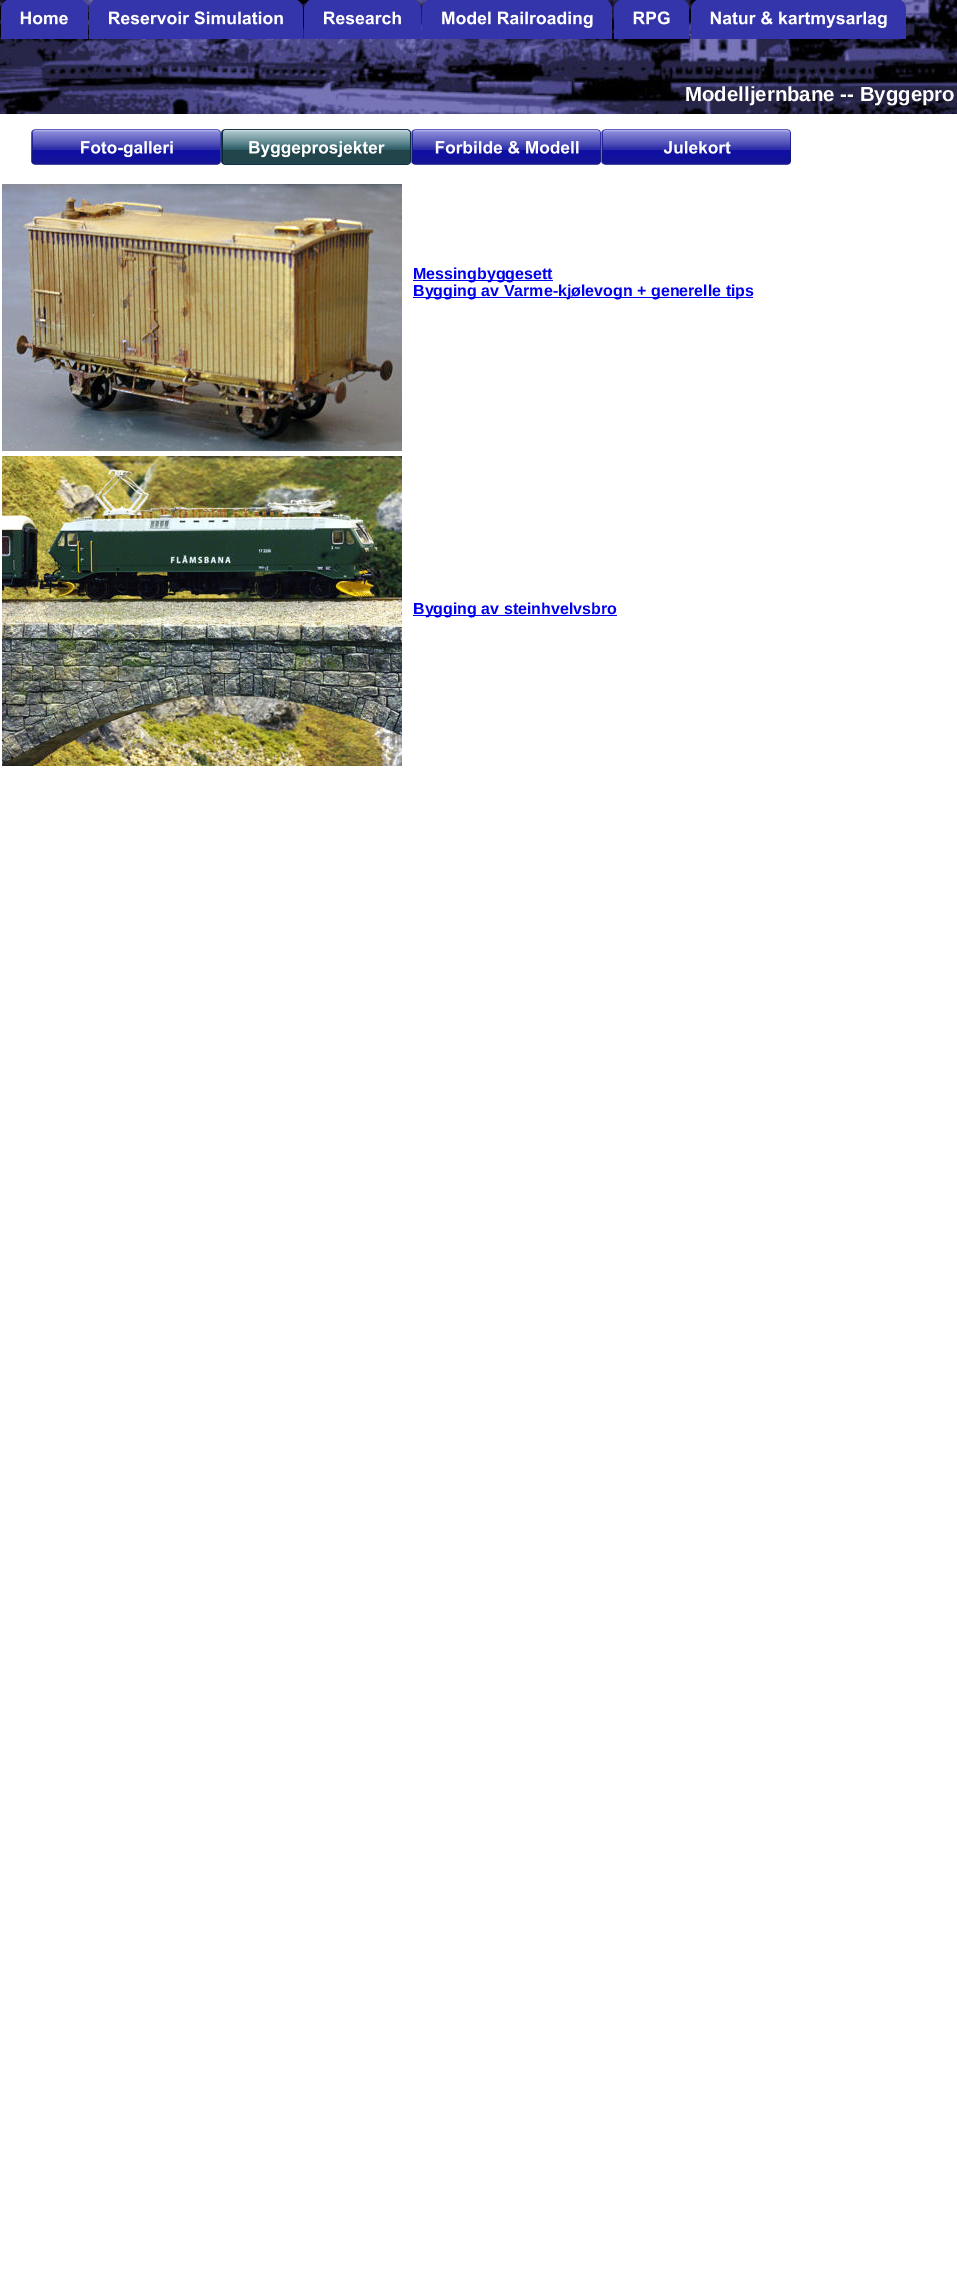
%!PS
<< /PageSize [957 2296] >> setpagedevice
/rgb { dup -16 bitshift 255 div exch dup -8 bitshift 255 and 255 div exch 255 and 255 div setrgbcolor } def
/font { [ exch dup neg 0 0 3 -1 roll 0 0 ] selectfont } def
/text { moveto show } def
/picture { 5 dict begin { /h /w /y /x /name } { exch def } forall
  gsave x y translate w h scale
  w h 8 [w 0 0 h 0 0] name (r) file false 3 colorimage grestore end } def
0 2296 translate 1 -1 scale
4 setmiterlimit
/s1 { /LiberationSans-Bold 20.4 font 16#FFFFFF rgb } def
/s2 { /LiberationSans-Bold 16 font 16#0000EE rgb } def
16#FFFFFF rgb
0 0 957 2296 rectfill
(pic7.raw) 0 0 957 114 picture
(pic1.raw) 1 0 87 39 picture
(pic2.raw) 89 0 214 39 picture
(pic3.raw) 304 0 117 39 picture
(pic4.raw) 422 0 190 39 picture
(pic5.raw) 614 0 75 39 picture
(pic6.raw) 691 0 215 39 picture
s1
(Modelljernbane -- Byggepro) 685 101 text
(pic8.raw) 2 184 400 267 picture
16#0000EE rgb
413 280 140 1 rectfill
s2
(Messingbyggesett) 413 279 text
413 297 340 1 rectfill
(Bygging av Varme-kjølevogn + generelle tips) 413 296 text
(pic9.raw) 2 456 400 310 picture
413 615 204 1 rectfill
(Bygging av steinhvelvsbro) 413 614 text
(pic10.raw) 31 129 190 36 picture
(pic11.raw) 221 129 190 36 picture
(pic12.raw) 411 129 190 36 picture
(pic13.raw) 601 129 190 36 picture
showpage
